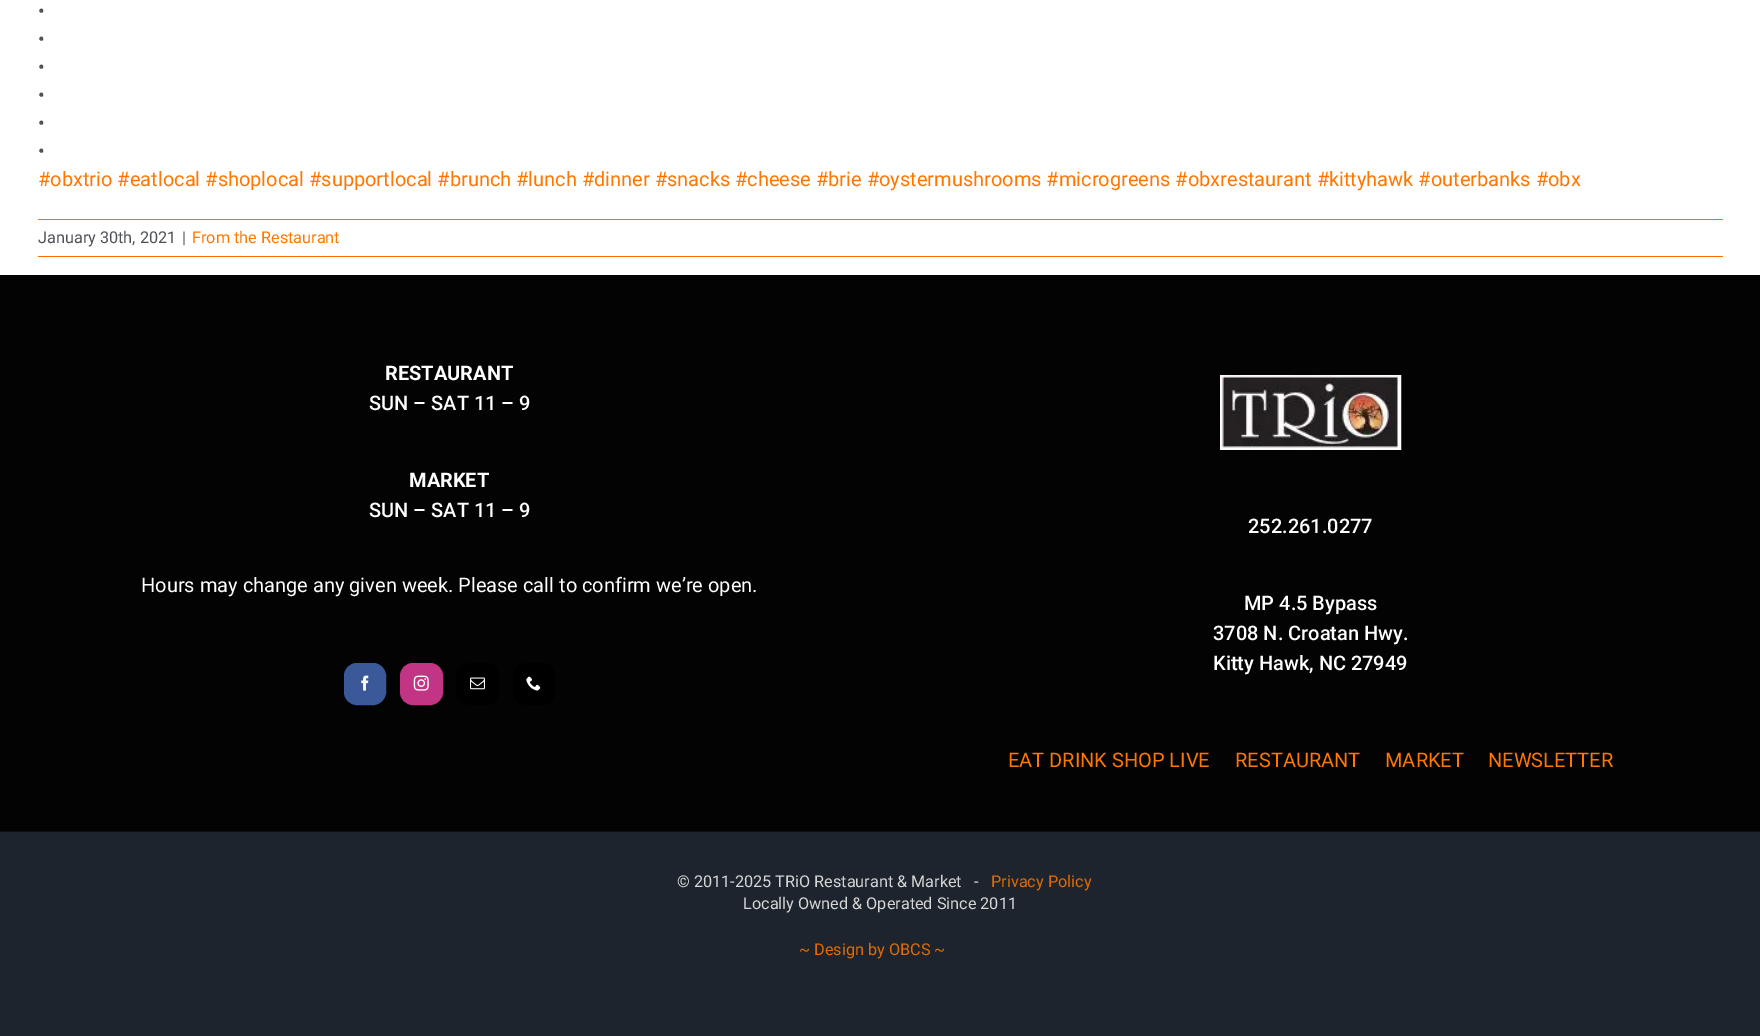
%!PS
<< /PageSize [1760 1036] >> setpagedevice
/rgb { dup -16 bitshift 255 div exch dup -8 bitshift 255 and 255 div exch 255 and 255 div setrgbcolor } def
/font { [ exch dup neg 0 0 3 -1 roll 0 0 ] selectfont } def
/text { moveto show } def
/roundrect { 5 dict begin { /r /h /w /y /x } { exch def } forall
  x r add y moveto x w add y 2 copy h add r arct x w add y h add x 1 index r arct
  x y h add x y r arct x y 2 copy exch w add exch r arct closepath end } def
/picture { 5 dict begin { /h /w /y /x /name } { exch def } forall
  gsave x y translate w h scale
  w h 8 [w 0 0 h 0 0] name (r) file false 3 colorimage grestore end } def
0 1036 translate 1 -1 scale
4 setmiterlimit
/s1 { /Roboto-Regular 20 font 16#4E5156 rgb } def
/s2 { /Roboto-Regular 20 font 16#FF7700 rgb } def
/s3 { /Roboto-Regular 16.25 font 16#4E5156 rgb } def
/s4 { /Roboto-Regular 16.25 font 16#FF7700 rgb } def
/s5 { /Roboto-Bold 20 font 16#FFFFFF rgb } def
/s6 { /Roboto-Medium 20 font 16#FFFFFF rgb } def
/s7 { /Roboto-Regular 20 font 16#FFFFFF rgb } def
/s8 { /Roboto-Regular 16.25 font 16#D6D6D6 rgb } def
/s9 { /Roboto-Regular 16.25 font 16#DF6B06 rgb } def
16#FFFFFF rgb
0 0 1760 1036 rectfill
s1
(•) 38 18 text
(•) 38 46 text
(•) 38 74 text
(•) 38 102 text
(•) 38 130 text
(•) 38 158 text
s2
(#obxtrio #eatlocal #shoplocal #supportlocal #brunch #lunch #dinner #snacks #cheese #brie #oystermushrooms #microgreens #obxrestaurant #kittyhawk #outerbanks #obx) 38 186 text
16#FC6D00 rgb
38 219 1685 1 rectfill
38 256 1685 1 rectfill
s3
(January 30th, 2021) 38 243 text
(|) 182 243 text
s4
(From the Restaurant) 192 243 text
16#030303 rgb
0 275 1760 556 rectfill
s5
(RESTAURANT) 385 380 text
s6
(SUN – SAT 11 – 9) 369 410 text
s5
(MARKET) 409 487 text
s6
(SUN – SAT 11 – 9) 369 517 text
s7
(Hours may change any given week. Please call to confirm we’re open.) 141 592 text
16#3B5998 rgb
344.5 663.5 41 41 12.5 roundrect gsave fill grestore
stroke
(pic1.raw) 361 675 8 16 picture
16#C13584 rgb
400.5 663.5 42 41 12.5 roundrect gsave fill grestore
stroke
(pic2.raw) 413 675 16 16 picture
16#000000 rgb
456 663 43 42 13 roundrect fill
(pic3.raw) 470 677 15 13 picture
513 663 42 42 13 roundrect fill
(pic4.raw) 526 676 15 15 picture
(pic5.raw) 1220 375 182 75 picture
s6
(252.261.0277) 1248 533 text
(MP 4.5 Bypass) 1244 610 text
(3708 N. Croatan Hwy.) 1213 640 text
(Kitty Hawk, NC 27949) 1213 670 text
s2
(EAT DRINK SHOP LIVE) 1008 767 text
(RESTAURANT) 1235 767 text
(MARKET) 1385 767 text
(NEWSLETTER) 1488 767 text
16#1D242D rgb
0 832 1760 204 rectfill
16#0C0F12 rgb
0 831 1760 1 rectfill
s8
(© 2011-2025 TRiO Restaurant & Market   -) 677 887 text
s9
(Privacy Policy) 991 887 text
s8
(Locally Owned & Operated Since 2011) 743 909 text
s9
(~ Design by OBCS ~) 799 955 text
showpage
